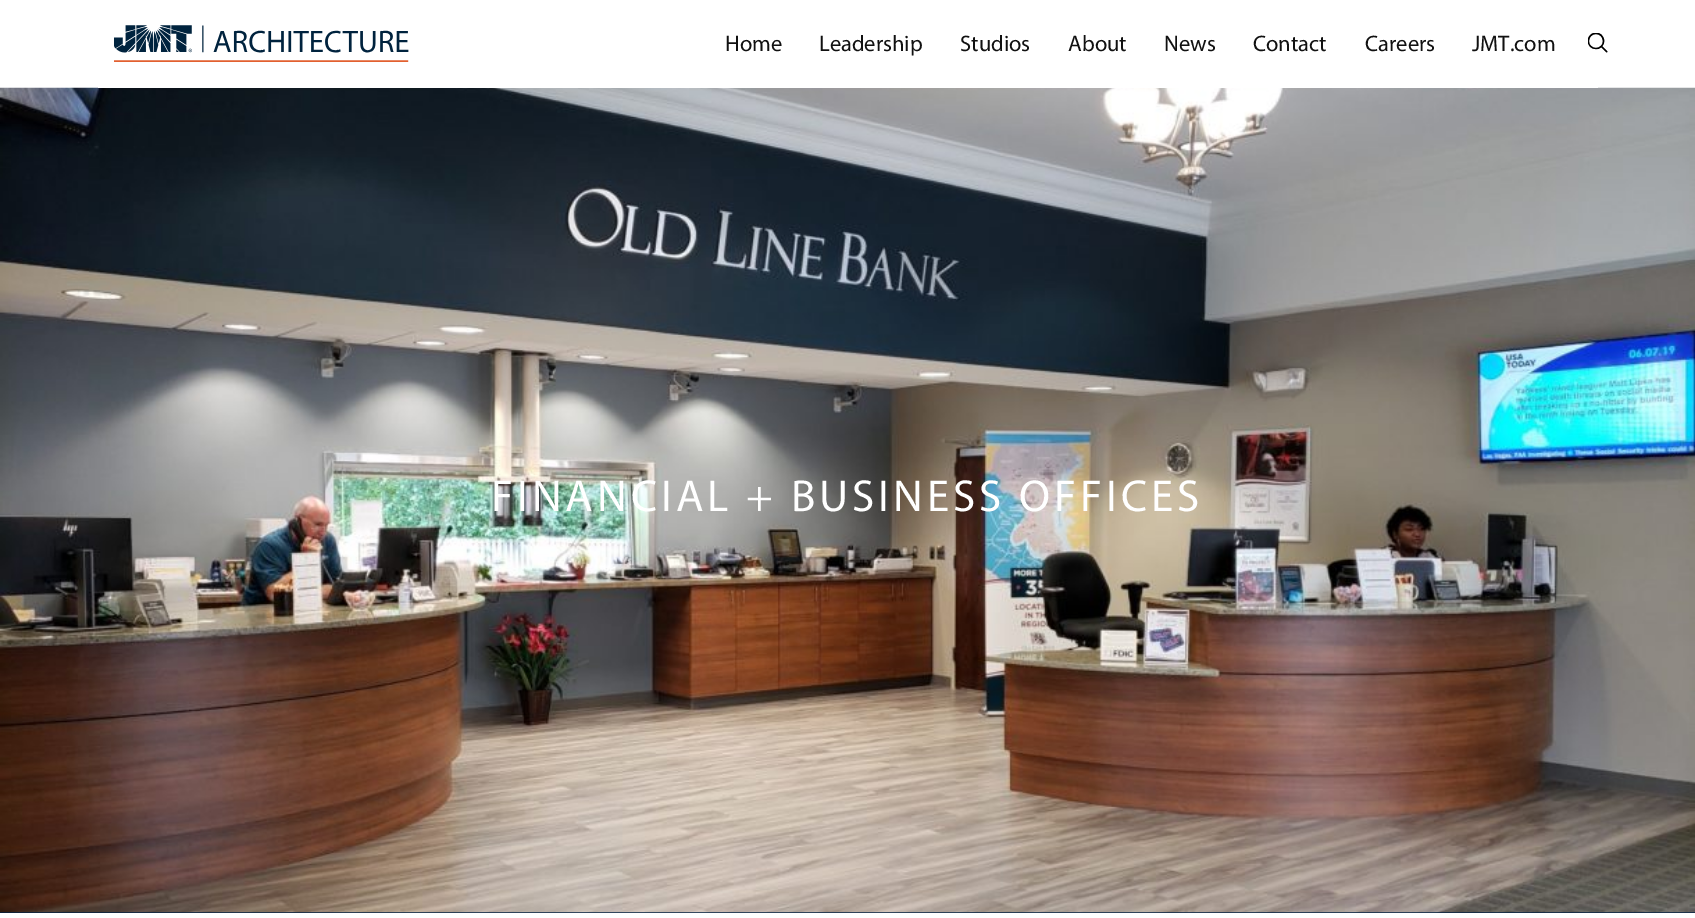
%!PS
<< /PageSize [1695 918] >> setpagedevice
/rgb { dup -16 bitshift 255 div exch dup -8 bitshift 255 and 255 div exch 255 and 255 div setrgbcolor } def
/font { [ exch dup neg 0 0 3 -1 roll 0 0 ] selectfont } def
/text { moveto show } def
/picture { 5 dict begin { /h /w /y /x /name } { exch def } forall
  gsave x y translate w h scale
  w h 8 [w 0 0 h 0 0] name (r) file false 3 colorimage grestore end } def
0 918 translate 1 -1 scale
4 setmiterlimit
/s1 { /Myriad-Regular 22.5 font 16#111111 rgb } def
16#FFFFFF rgb
0 0 1695 918 rectfill
16#022041 rgb
0 912 1695 1 rectfill
(pic3.raw) 0 87 1695 826 picture
16#FFFFFF rgb
98 87 1500 1 rectfill
(pic1.raw) 114 25 295 37 picture
s1
(Home) 725 51 text
(Leadership) 819 51 text
(Studios) 960 51 text
(About) 1068 51 text
(News) 1164 51 text
(Contact) 1253 51 text
(Careers) 1365 51 text
(JMT.com) 1472 51 text
(pic2.raw) 1588 33 20 20 picture
/Myriad-Regular 45 font
16#FFFFFF rgb
491 511 moveto 4.05 0 (FINANCIAL + BUSINESS OFFICES) ashow
showpage
